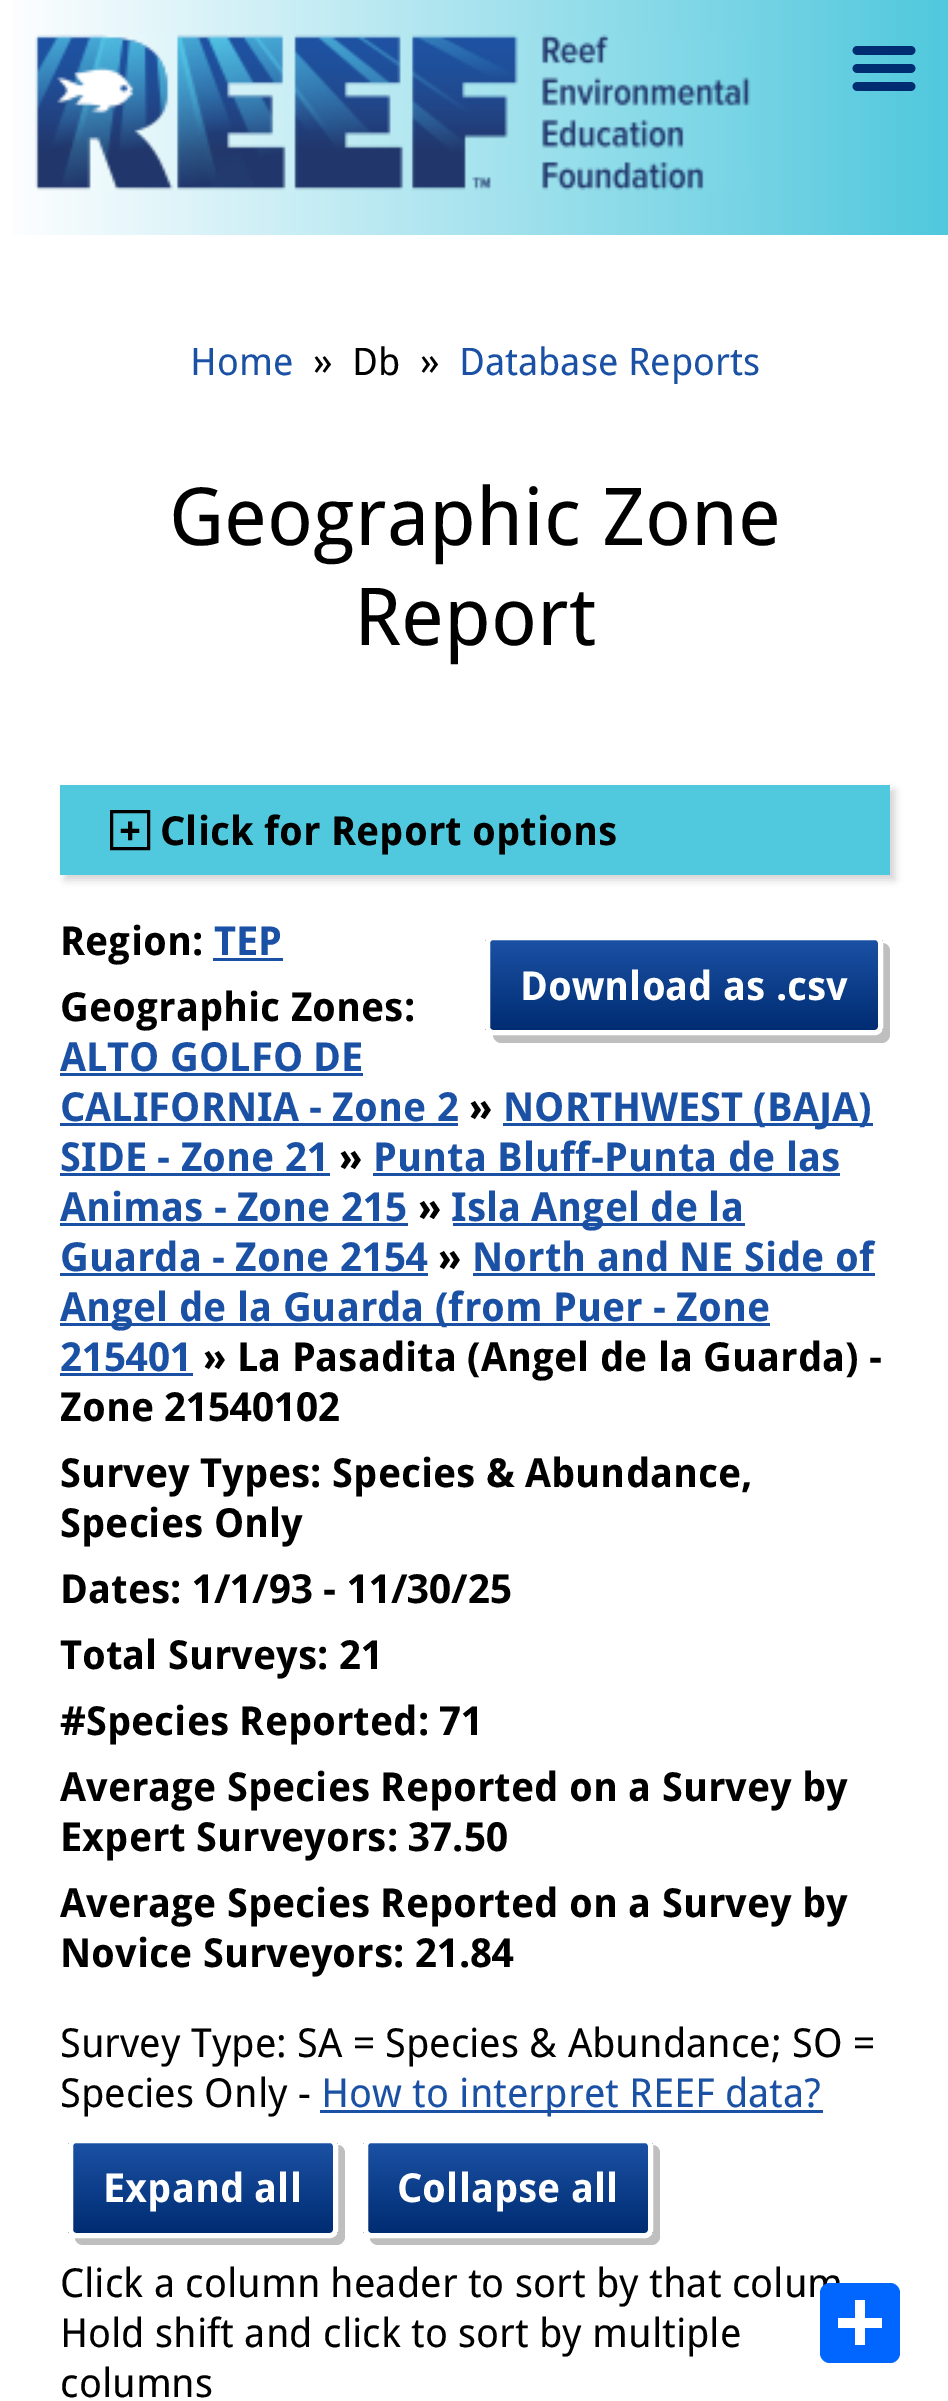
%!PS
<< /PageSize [948 2401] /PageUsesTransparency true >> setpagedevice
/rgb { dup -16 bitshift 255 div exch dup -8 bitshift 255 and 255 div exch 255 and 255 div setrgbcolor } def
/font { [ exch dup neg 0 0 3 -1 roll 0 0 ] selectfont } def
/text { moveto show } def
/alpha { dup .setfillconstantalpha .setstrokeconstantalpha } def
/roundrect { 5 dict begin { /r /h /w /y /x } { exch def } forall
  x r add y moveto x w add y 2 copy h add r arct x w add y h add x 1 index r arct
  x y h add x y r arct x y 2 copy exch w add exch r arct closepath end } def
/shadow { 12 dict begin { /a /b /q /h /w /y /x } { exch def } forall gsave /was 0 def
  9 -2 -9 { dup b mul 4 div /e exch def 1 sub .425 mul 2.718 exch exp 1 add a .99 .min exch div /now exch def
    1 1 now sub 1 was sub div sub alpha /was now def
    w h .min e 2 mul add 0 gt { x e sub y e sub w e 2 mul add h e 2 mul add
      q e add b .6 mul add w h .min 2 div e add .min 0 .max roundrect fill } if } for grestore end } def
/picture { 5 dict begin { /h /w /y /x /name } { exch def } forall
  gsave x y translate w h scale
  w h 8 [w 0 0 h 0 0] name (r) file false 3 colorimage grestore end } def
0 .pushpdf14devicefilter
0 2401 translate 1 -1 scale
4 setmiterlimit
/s1 { /DroidSans-Regular 38 font 16#1B51A4 rgb } def
/s2 { /DroidSans-Regular 40 font 16#000000 rgb } def
/s3 { /DroidSans-Regular 38 font 16#000000 rgb } def
/s4 { /DroidSans-Regular 80 font 16#000000 rgb } def
/s5 { /DroidSans-Bold 40 font 16#000000 rgb } def
/s6 { /DroidSans-Bold 40 font 16#1B51A4 rgb } def
/s7 { /DroidSans-Bold 40 font 16#FFFFFF rgb } def
/s8 { /DroidSans-Regular 40 font 16#1B51A4 rgb } def
16#FFFFFF rgb
0 0 948 2401 rectfill
gsave 13 0 moveto 948 0 lineto 948 235 lineto 13 235 lineto closepath clip newpath
<< /ShadingType 2 /ColorSpace /DeviceRGB /Coords [0 118 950 117] /Extend [true true] /Function << /FunctionType 2 /Domain [0 1] /C0 [1 1 1] /C1 [0.314 0.784 0.867] /N 1 >> >> shfill grestore
(pic1.raw) 34 34 717 157 picture
(pic2.raw) 852 46 64 45 picture
s1
(Home) 190 375 text
s2
(») 313 375 text
s3
(Db) 352 375 text
s2
(») 420 375 text
s1
(Database Reports) 459 375 text
s4
(Geographic Zone) 169 545 text
(Report) 354 645 text
16#D3D3D3 rgb
65 790 830 90 0 4 1 shadow
16#50C8DD rgb
60 785 830 90 rectfill
16#000000 rgb
3 setlinewidth
111.5 811.5 37 37 rectstroke
s5
(+) 119 845 text
(Click for Report options) 160 845 text
(Region:) 60 955 text
s6
(TEP) 214 955 text
213 958 70 3 rectfill
s5
(Geographic Zones:) 60 1021 text
s6
(ALTO GOLFO DE) 60 1071 text
60 1073 303 3 rectfill
(CALIFORNIA - Zone 2) 60 1121 text
60 1123 398 3 rectfill
s5
(») 469 1121 text
16#1B51A4 rgb
503 1123 370 3 rectfill
(NORTHWEST \(BAJA\)) 503 1121 text
(SIDE - Zone 21) 60 1171 text
60 1173 270 3 rectfill
s5
(») 339 1171 text
s6
(Punta Bluff-Punta de las) 373 1171 text
373 1173 467 3 rectfill
(Animas - Zone 215) 60 1221 text
60 1223 348 3 rectfill
s5
(») 418 1221 text
16#1B51A4 rgb
453 1223 292 3 rectfill
(Isla Angel de la) 451 1221 text
(Guarda - Zone 2154) 60 1271 text
60 1273 368 3 rectfill
s5
(») 438 1271 text
s6
(North and NE Side of) 472 1271 text
473 1273 402 3 rectfill
60 1323 710 3 rectfill
(Angel de la Guarda \(from Puer - Zone) 60 1321 text
(215401) 60 1371 text
60 1373 133 3 rectfill
s5
(» La Pasadita \(Angel de la Guarda\) -) 203 1371 text
(Zone 21540102) 60 1421 text
(Survey Types: Species & Abundance,) 60 1487 text
(Species Only) 60 1537 text
(Dates: 1/1/93 - 11/30/25) 60 1603 text
(Total Surveys: 21) 60 1669 text
(#Species Reported: 71) 60 1735 text
(Average Species Reported on a Survey by) 60 1801 text
(Expert Surveyors: 37.50) 60 1851 text
(Average Species Reported on a Survey by) 60 1917 text
(Novice Surveyors: 21.84) 60 1967 text
16#BFBFBF rgb
493 1035 moveto 493 1039 497 1043 501 1043 curveto 882 1043 lineto 886 1043 890 1039 890 1035 curveto 890 951 lineto 890 947 887 943 882 943 curveto 882 1028 lineto 882 1032 879 1035 875 1035 curveto closepath fill
gsave
485 935 398 100 8 roundrect clip newpath
gsave 485 940 moveto 883 940 lineto 883 1030 lineto 485 1030 lineto closepath clip newpath
<< /ShadingType 2 /ColorSpace /DeviceRGB /Coords [684 940 684 1030] /Extend [true true] /Function << /FunctionType 2 /Domain [0 1] /C0 [0.106 0.318 0.643] /C1 [0 0.173 0.447] /N 1 >> >> shfill grestore
grestore
16#FFFFFF rgb
5 setlinewidth
487.5 937.5 393 95 5.5 roundrect stroke
(Download as .csv) 520 1000 text
s2
(Survey Type: SA = Species & Abundance; SO =) 60 2057 text
(Species Only -) 60 2107 text
16#1B51A4 rgb
320 2110 503 3 rectfill
(How to interpret REEF data?) 321 2107 text
16#BFBFBF rgb
75 2238 moveto 75 2242 79 2245 83 2245 curveto 337 2245 lineto 341 2245 345 2241 345 2237 curveto 345 2153 lineto 345 2149 342 2145 338 2145 curveto 338 2230 lineto 338 2234 334 2238 330 2238 curveto closepath fill
gsave
68 2138 270 100 8 roundrect clip newpath
gsave 68 2143 moveto 338 2143 lineto 338 2233 lineto 68 2233 lineto closepath clip newpath
<< /ShadingType 2 /ColorSpace /DeviceRGB /Coords [203 2143 203 2233] /Extend [true true] /Function << /FunctionType 2 /Domain [0 1] /C0 [0.106 0.318 0.643] /C1 [0 0.173 0.447] /N 1 >> >> shfill grestore
grestore
16#FFFFFF rgb
70.5 2140.5 265 95 5.5 roundrect stroke
s7
(Expand all) 103 2202 text
16#BFBFBF rgb
370 2238 moveto 370 2242 374 2245 378 2245 curveto 652 2245 lineto 656 2245 660 2241 660 2237 curveto 660 2153 lineto 660 2149 657 2145 652 2145 curveto 652 2230 lineto 652 2234 649 2238 645 2238 curveto closepath fill
gsave
363 2138 290 100 8 roundrect clip newpath
gsave 363 2143 moveto 653 2143 lineto 653 2233 lineto 363 2233 lineto closepath clip newpath
<< /ShadingType 2 /ColorSpace /DeviceRGB /Coords [508 2143 508 2233] /Extend [true true] /Function << /FunctionType 2 /Domain [0 1] /C0 [0.106 0.318 0.643] /C1 [0 0.173 0.447] /N 1 >> >> shfill grestore
grestore
16#FFFFFF rgb
365.5 2140.5 285 95 5.5 roundrect stroke
(Collapse all) 397 2202 text
s2
(Click a column header to sort by that colum) 60 2297 text
(Hold shift and click to sort by multiple) 60 2347 text
(columns) 60 2397 text
16#0166FF rgb
820 2283 80 80 10 roundrect fill
16#FFFFFF rgb
855 2300 10 45 rectfill
838 2318 44 10 rectfill
.poppdf14devicefilter showpage
